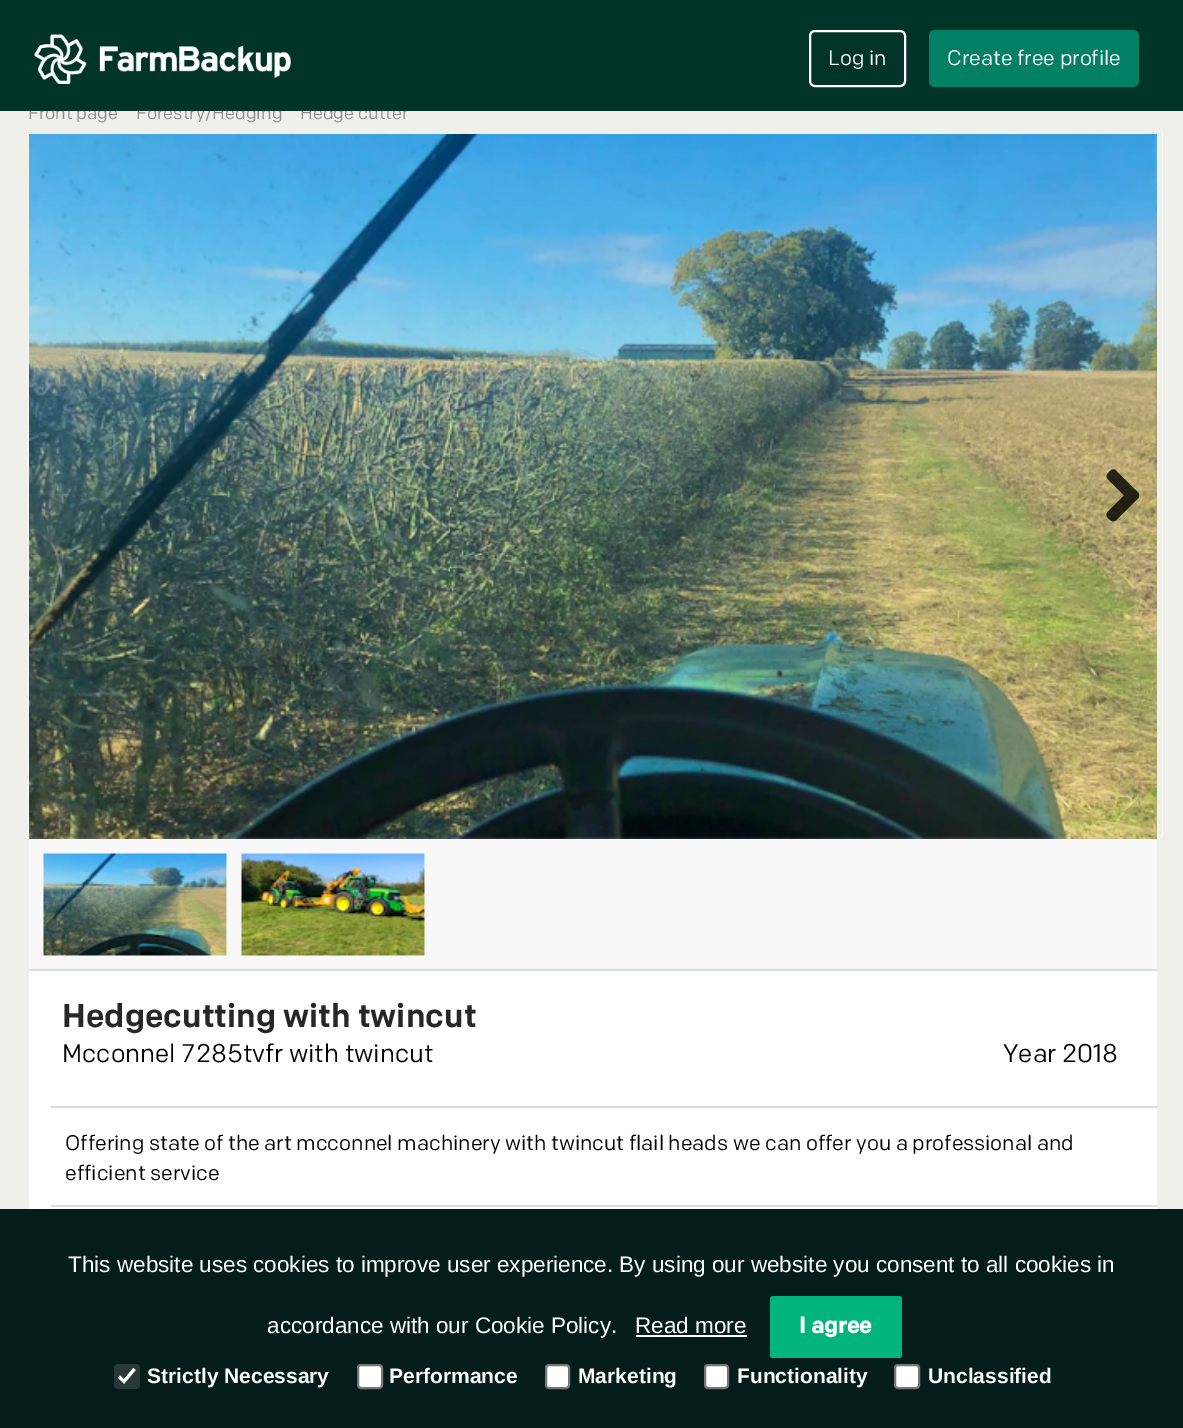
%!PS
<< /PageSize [1183 1428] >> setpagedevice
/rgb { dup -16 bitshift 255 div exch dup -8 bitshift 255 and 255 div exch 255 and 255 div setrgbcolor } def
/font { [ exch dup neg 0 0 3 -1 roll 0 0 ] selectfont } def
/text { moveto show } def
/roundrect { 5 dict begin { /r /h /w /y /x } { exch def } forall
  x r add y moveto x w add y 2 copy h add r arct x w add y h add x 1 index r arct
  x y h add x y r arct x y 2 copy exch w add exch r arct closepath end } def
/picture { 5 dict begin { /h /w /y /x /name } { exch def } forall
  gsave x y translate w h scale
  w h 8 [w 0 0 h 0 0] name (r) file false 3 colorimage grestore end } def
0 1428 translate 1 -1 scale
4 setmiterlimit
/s1 { /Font-Regular 18 font 16#8C8C8C rgb } def
/s2 { /Font-Regular 21 font 16#FFFFFF rgb } def
/s3 { /Font-Medium 33 font 16#272727 rgb } def
/s4 { /Font-Regular 25.5 font 16#000000 rgb } def
/s5 { /Font-Regular 21 font 16#000000 rgb } def
/s6 { /LiberationSans-Regular 22.5 font 16#FFFFFF rgb } def
/s7 { /Font-Bold 22.5 font 16#FFFFFF rgb } def
/s8 { /LiberationSans-Bold 21 font 16#FFFFFF rgb } def
16#F0F0EB rgb
0 0 1183 1428 rectfill
s1
(Front page) 28 119 text
(Forestry/Hedging) 136 119 text
(Hedge cutter) 300 119 text
16#013428 rgb
0 0 1183 111 rectfill
(pic1.raw) 34 34 257 50 picture
16#FFFFFF rgb
2 setlinewidth
810 31 95 55 5 roundrect stroke
s2
(Log in) 828 65 text
16#028063 rgb
929 30 210 57 6 roundrect fill
s2
(Create free profile) 947 65 text
16#F8F8F8 rgb
23 128 1140 711 6 roundrect fill
16#F0F0EB rgb
28 128 moveto 1156 128 lineto 1160 128 1162 130 1162 134 curveto 1162 832 lineto 1162 836 1160 838 1156 838 curveto 28 838 lineto 25 838 22 836 22 832 curveto 22 134 lineto 22 130 25 128 28 128 curveto closepath 28 134 moveto 1156 134 lineto 1156 838 lineto 28 838 lineto 28 832 lineto closepath eofill
(pic3.raw) 29 134 1128 705 picture
(pic2.raw) 1155 133 2 706 picture
(pic4.raw) 1106 469 34 53 picture
16#F8F8F8 rgb
29 839 1128 130 rectfill
16#D1E0DD rgb
29 969 1128 2 rectfill
16#FFFFFF rgb
44 854 183 102 rectfill
(pic5.raw) 43 853 184 103 picture
242 854 183 102 rectfill
(pic6.raw) 241 853 184 103 picture
29 971 1128 238 rectfill
s3
(Hedgecutting with twincut) 62 1027 text
s4
(Mcconnel 7285tvfr with twincut) 62 1062 text
(Year 2018) 1003 1062 text
16#D1E0DD rgb
51 1106 1106 2 rectfill
s5
(Offering state of the art mcconnel machinery with twincut flail heads we can offer you a professional and) 65 1150 text
(efficient service) 65 1180 text
16#D1E0DD rgb
51 1205 1106 2 rectfill
16#051D1A rgb
0 1209 1183 219 rectfill
s6
(This website uses cookies to improve user experience. By using our website you consent to all cookies in) 68 1272 text
(accordance with our Cookie Policy.) 267 1333 text
(Read more) 635 1333 text
636 1335 111 2 rectfill
16#00B57C rgb
770 1296 132 62 3 roundrect fill
s7
(I agree) 799 1333 text
16#273836 rgb
114 1364 26 25 4 roundrect fill
16#FFFFFF rgb
3.1 setlinewidth
119 1376.5 moveto 124 1381.5 lineto 134.5 1369 lineto stroke
s8
(Strictly Necessary) 147 1383 text
358 1365 24 23 3 roundrect gsave fill grestore
16#767676 rgb
2 setlinewidth
stroke
s8
(Performance) 389 1383 text
546 1365 23 23 3 roundrect gsave fill grestore
16#767676 rgb
stroke
s8
(Marketing) 578 1383 text
705 1365 23 23 3 roundrect gsave fill grestore
16#767676 rgb
stroke
s8
(Functionality) 737 1383 text
895 1365 24 23 3 roundrect gsave fill grestore
16#767676 rgb
stroke
s8
(Unclassified) 928 1383 text
showpage
